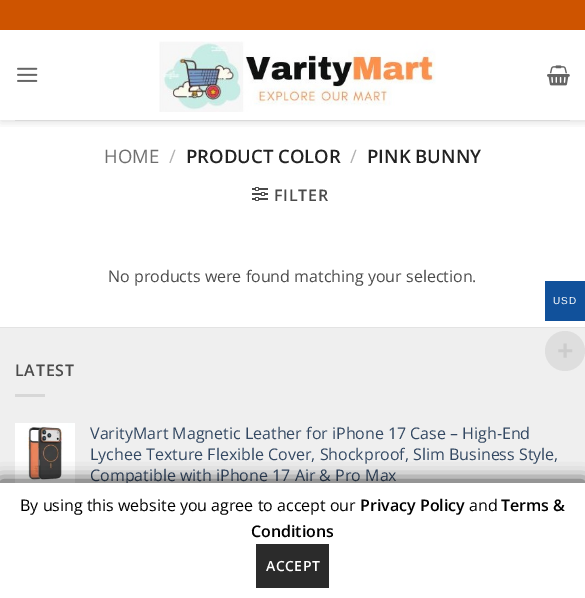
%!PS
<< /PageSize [585 598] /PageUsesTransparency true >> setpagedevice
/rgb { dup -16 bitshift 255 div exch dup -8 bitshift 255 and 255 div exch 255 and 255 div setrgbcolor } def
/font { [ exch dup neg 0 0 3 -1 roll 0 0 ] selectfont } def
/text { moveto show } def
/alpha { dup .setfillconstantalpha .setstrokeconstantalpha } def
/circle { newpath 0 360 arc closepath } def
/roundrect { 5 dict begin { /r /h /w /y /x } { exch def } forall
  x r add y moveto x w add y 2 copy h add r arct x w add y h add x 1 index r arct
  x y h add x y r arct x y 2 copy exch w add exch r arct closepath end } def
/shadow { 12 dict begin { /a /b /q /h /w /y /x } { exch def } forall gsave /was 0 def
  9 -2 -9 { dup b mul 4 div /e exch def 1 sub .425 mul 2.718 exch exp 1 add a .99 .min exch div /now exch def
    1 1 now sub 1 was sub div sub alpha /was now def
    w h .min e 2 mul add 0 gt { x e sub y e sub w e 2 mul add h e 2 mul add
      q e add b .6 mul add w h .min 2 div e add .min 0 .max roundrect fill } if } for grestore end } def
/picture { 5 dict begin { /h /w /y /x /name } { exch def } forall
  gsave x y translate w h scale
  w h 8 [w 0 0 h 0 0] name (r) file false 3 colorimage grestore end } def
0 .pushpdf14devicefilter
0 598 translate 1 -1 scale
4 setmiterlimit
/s1 { /OpenSans-Regular 18.5 font 16#6E6E6E rgb } def
/s2 { /OpenSans-Regular 18.5 font 16#B2B2B2 rgb } def
/s3 { /OpenSans-SemiBold 18.5 font 16#222222 rgb } def
/s4 { /OpenSans-Regular 16 font 16#4A4A4A rgb } def
/s5 { /OpenSans-Regular 16 font 16#334862 rgb } def
/s6 { /LiberationSans-Bold 28 font 16#CCCCCC rgb } def
/s7 { /OpenSans-Regular 16 font 16#000000 rgb } def
/s8 { /OpenSans-SemiBold 16 font 16#000000 rgb } def
16#FFFFFF rgb
0 0 585 598 rectfill
gsave
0 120 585 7 rectclip
16#000000 rgb
1 1 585 120 0 5 0.15 shadow
grestore
16#CE5400 rgb
0 0 585 30 rectfill
(pic1.raw) 17 67 21 15 picture
(pic2.raw) 159 41 277 71 picture
(pic3.raw) 547 65 23 21 picture
16#DADADA rgb
15 120 555 1 rectfill
s1
(HOME) 104 163 text
s2
(/) 169 163 text
s3
(PRODUCT COLOR) 186 163 text
s2
(/) 350 163 text
s3
(PINK BUNNY) 367 163 text
(pic4.raw) 252 187 16 14 picture
/OpenSans-SemiBold 16 font
16#4A4A4A rgb
274 201 moveto 0.75 0 (FILTER) ashow
s4
(No products were found matching your selection.) 108 282 text
16#EFEFEF rgb
0 328 585 155 rectfill
16#E3E3E3 rgb
0 327 585 1 rectfill
/OpenSans-SemiBold 16 font
16#4A4A4A rgb
15 376 moveto 0.75 0 (LATEST) ashow
16#D7D7D7 rgb
15 394 30 3 rectfill
(pic5.raw) 15 423 60 60 picture
s5
(VarityMart Magnetic Leather for iPhone 17 Case – High-End) 90 439 text
(Lychee Texture Flexible Cover, Shockproof, Slim Business Style,) 90 460 text
(Compatible with iPhone 17 Air & Pro Max) 90 481 text
16#11519B rgb
545 281 40 40 rectfill
/LiberationSans-Regular 10 font
16#FFFFFF rgb
553 304 moveto 1 0 (USD) ashow
16#DEDEDE rgb
565 351 20 circle fill
s6
(+) 557 360 text
16#000000 rgb
0 481 585 115 0 8.5 0.75 shadow
16#FFFFFF rgb
0 483 585 115 rectfill
s7
(By using this website you agree to accept our) 20 511 text
s8
(Privacy Policy) 360 511 text
s7
(and) 469 511 text
s8
(Terms &) 501 511 text
(Conditions) 251 537 text
16#2B2B2B rgb
256 544 73 44 rectfill
/OpenSans-SemiBold 14 font
16#FFFFFF rgb
266 571 moveto 0.5 0 (ACCEPT) ashow
.poppdf14devicefilter showpage
